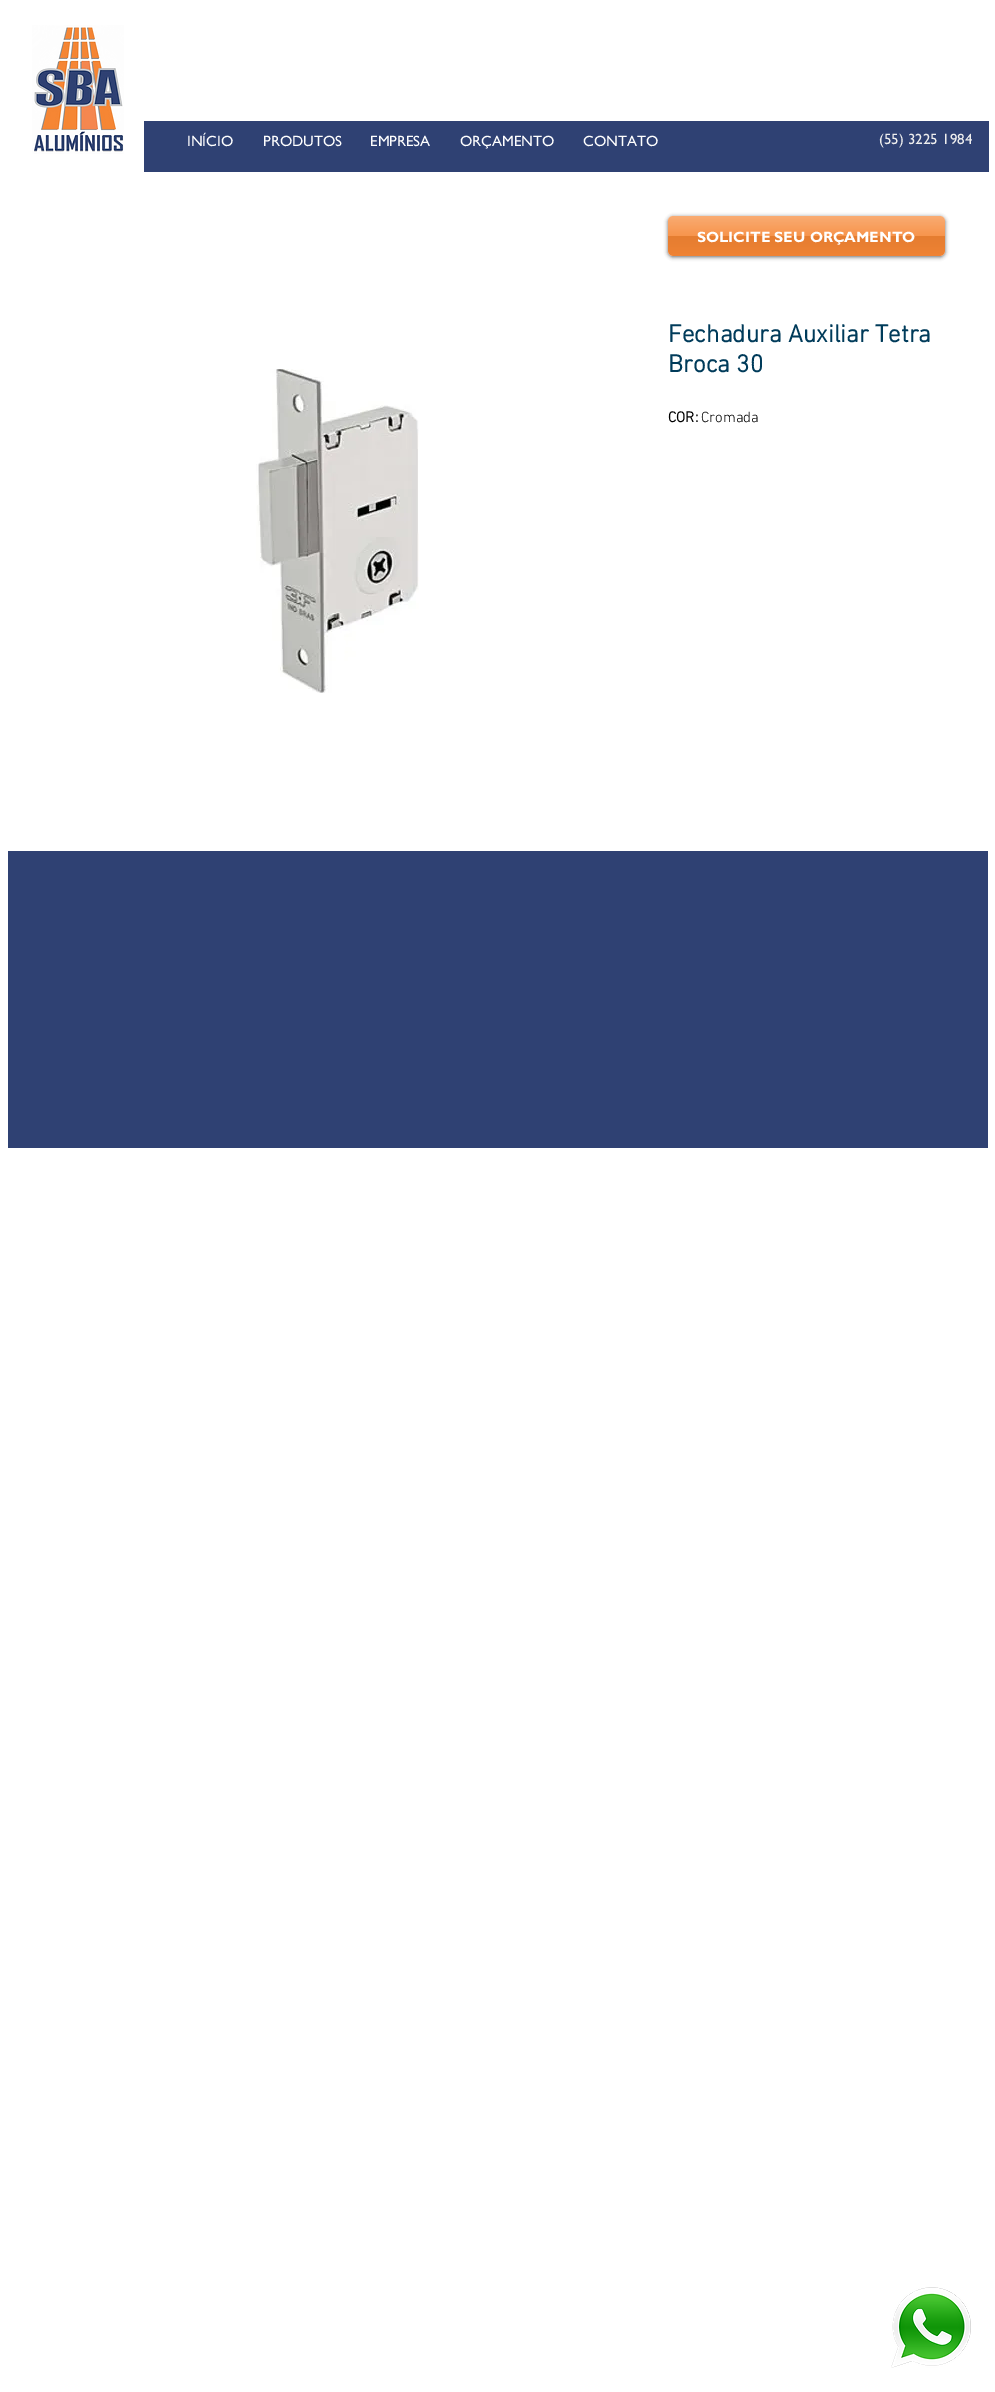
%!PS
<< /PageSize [995 2392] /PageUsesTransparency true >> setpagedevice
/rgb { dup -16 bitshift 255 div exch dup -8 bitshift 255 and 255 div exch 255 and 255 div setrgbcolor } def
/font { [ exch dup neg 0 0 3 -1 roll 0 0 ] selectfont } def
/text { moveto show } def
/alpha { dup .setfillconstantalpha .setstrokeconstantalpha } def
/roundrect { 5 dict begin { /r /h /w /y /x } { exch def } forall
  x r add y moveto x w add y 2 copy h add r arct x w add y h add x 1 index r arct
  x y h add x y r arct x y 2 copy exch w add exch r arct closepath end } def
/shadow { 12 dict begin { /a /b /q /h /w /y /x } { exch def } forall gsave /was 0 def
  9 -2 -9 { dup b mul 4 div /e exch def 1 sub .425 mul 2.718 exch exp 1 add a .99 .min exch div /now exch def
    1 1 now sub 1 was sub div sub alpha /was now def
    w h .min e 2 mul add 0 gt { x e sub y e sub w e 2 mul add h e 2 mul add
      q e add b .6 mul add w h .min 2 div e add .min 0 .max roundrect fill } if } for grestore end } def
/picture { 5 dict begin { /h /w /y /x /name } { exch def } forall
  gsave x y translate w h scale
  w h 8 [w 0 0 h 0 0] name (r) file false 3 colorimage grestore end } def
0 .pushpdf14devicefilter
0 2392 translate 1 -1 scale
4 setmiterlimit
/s1 { /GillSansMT-Regular 15 font 16#FFFFFF rgb } def
/s2 { /GillSansMT-Regular 15 font 16#EEEEEE rgb } def
/s3 { /GillSansMT-Bold 15 font 16#FFFFFF rgb } def
/s4 { /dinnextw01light-Bold 25 font 16#003B5A rgb } def
/s5 { /dinnextw01light-Bold 15 font 16#000000 rgb } def
/s6 { /dinnextw01light-Light 15 font 16#000000 rgb } def
16#FFFFFF rgb
0 0 995 2392 rectfill
(pic1.raw) 32 25 92 129 picture
16#2F4173 rgb
144 121 845 51 rectfill
s1
(INÍCIO) 187 146 text
(PRODUTOS) 263 146 text
(EMPRESA) 370 146 text
(ORÇAMENTO) 460 146 text
(CONTATO) 583 146 text
s2
(\(55\) 3225 1984) 879 144 text
16#000000 rgb
668 217 277 40 5 2 0.6 shadow
16#F68634 rgb
668 216 277 40 5 roundrect fill
(pic2.raw) 668 216 277 40 picture
s3
(SOLICITE SEU ORÇAMENTO) 697 242 text
(pic3.raw) 256 369 163 324 picture
s4
(Fechadura Auxiliar Tetra) 668 342 text
(Broca 30) 668 372 text
s5
(COR:) 668 422 text
s6
(Cromada) 701 422 text
16#2F4173 rgb
8 851 980 297 rectfill
(pic4.raw) 891 2287 80 81 picture
.poppdf14devicefilter showpage
